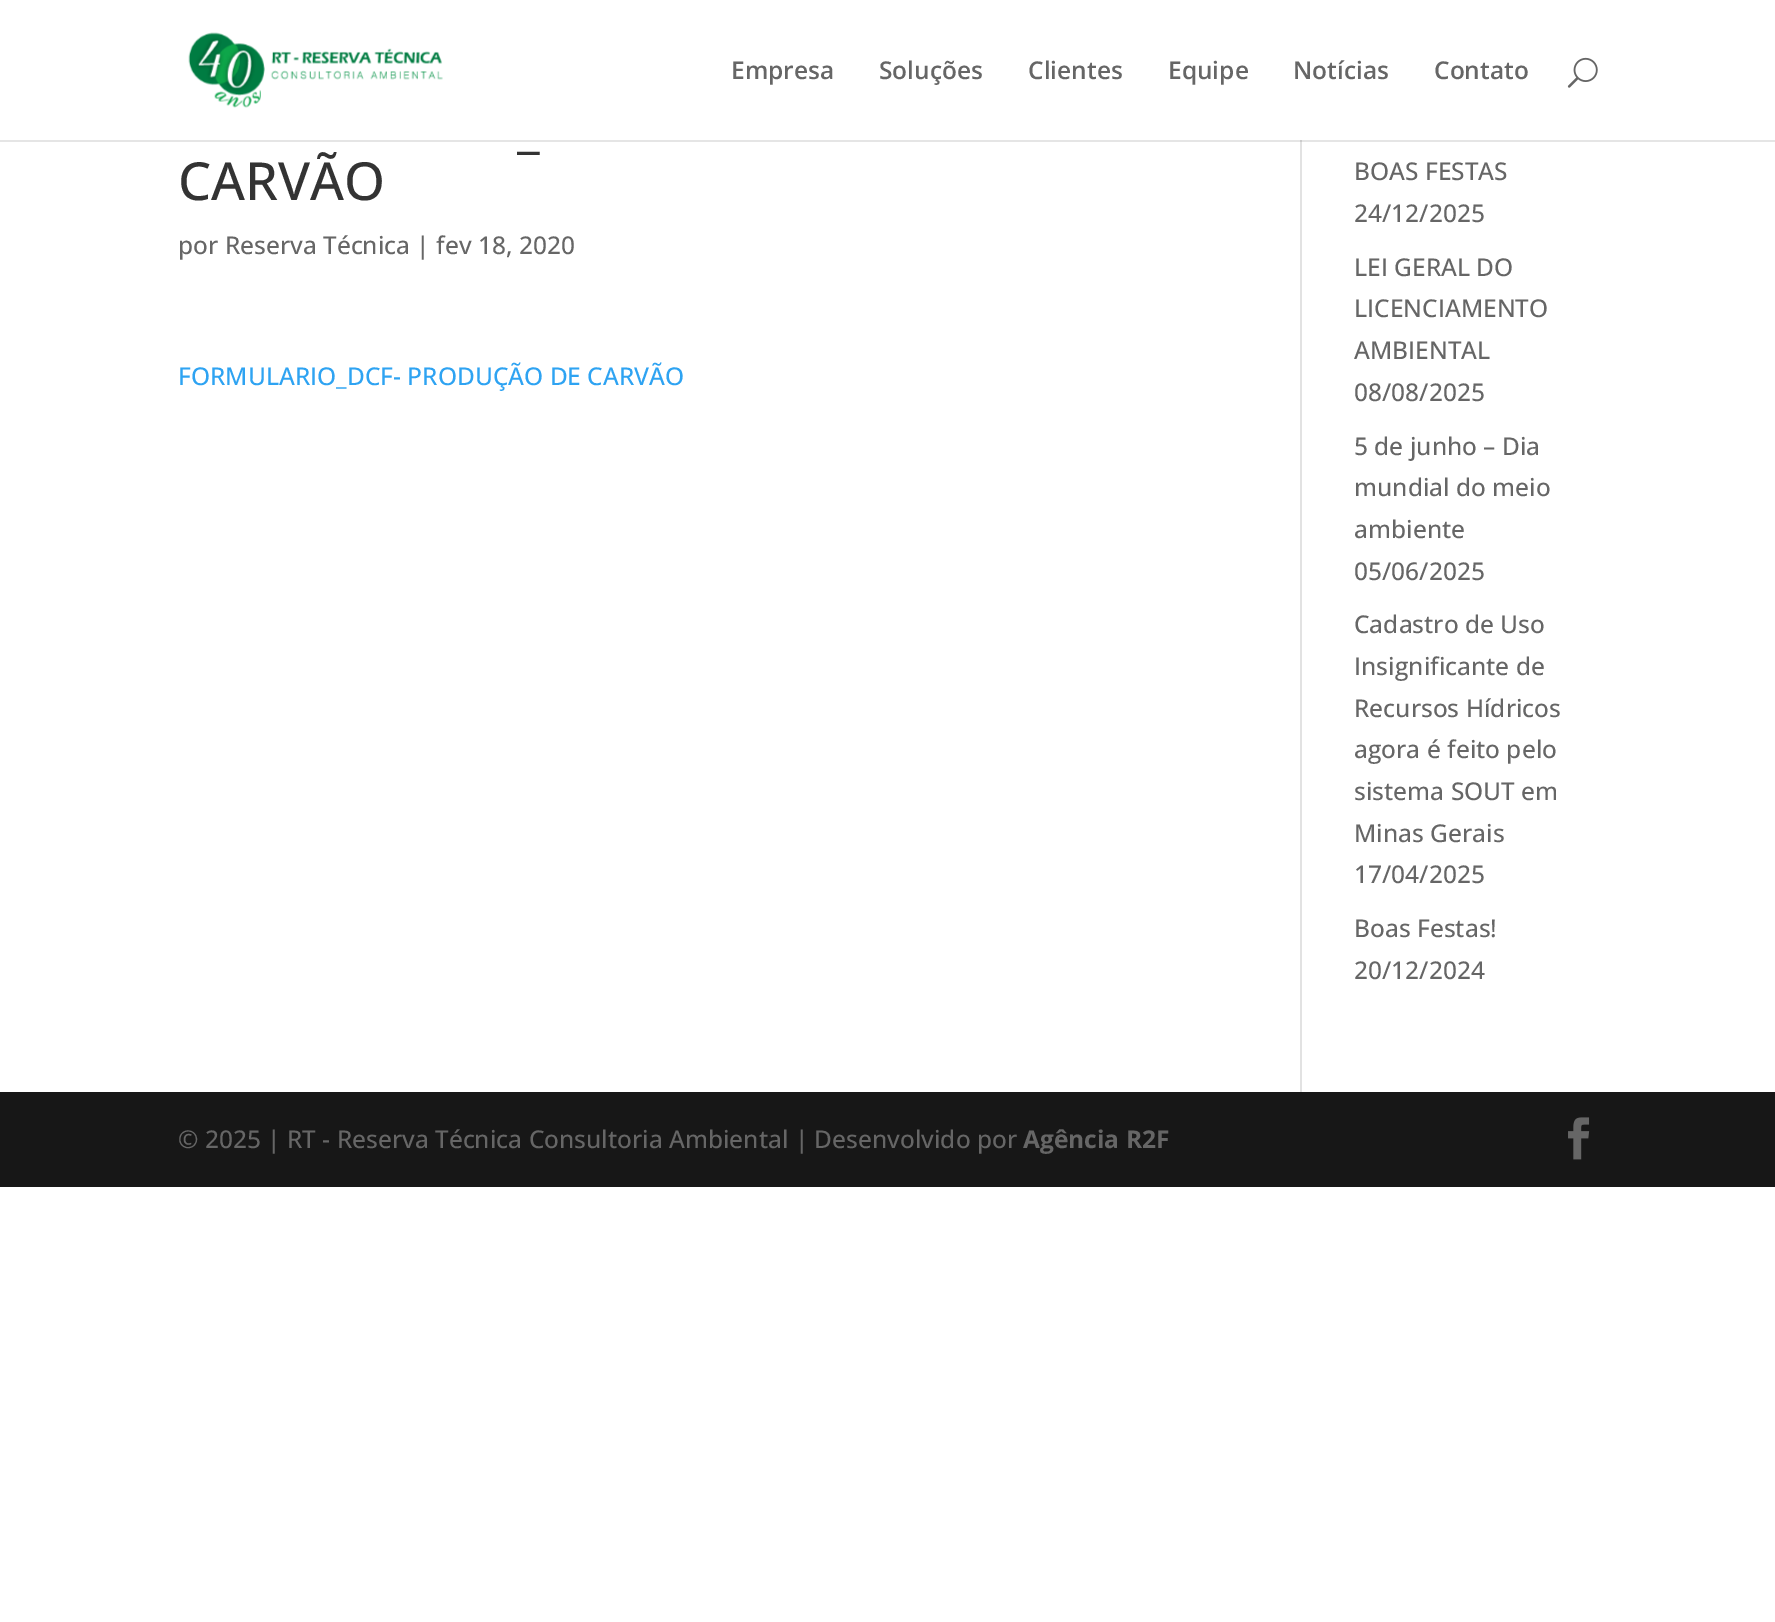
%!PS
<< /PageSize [1775 1622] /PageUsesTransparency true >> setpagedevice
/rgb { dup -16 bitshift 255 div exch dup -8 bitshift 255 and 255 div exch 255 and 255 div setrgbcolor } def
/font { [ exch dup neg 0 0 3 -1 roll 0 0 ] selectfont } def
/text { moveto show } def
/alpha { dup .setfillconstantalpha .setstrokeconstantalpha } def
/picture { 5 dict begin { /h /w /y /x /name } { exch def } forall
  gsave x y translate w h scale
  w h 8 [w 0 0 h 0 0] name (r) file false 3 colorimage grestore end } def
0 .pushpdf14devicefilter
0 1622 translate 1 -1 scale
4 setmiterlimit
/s1 { /OpenSans-SemiBold 24.5 font 16#666666 rgb } def
/s2 { /OpenSans-Medium 52.5 font 16#333333 rgb } def
/s3 { /OpenSans-Medium 24.5 font 16#666666 rgb } def
/s4 { /OpenSans-Medium 24.5 font 16#2EA3F2 rgb } def
/s5 { /OpenSans-Bold 24.5 font 16#666666 rgb } def
16#FFFFFF rgb
0 0 1775 1622 rectfill
16#E2E2E2 rgb
1300 140 2 952 rectfill
0.1 alpha
16#000000 rgb
0 140 1775 2 rectfill
1 alpha
(pic1.raw) 188 32 255 76 picture
s1
(Empresa) 731 79 text
(Soluções) 879 79 text
(Clientes) 1028 79 text
(Equipe) 1168 79 text
(Notícias) 1293 79 text
(Contato) 1434 79 text
(pic2.raw) 1567 57 31 31 picture
s2
(CARVÃO) 178 200 text
(_) 517 147 text
s3
(por Reserva Técnica | fev 18, 2020) 178 254 text
s4
(FORMULARIO_DCF- PRODUÇÃO DE CARVÃO) 178 385 text
s3
(BOAS FESTAS) 1354 180 text
(24/12/2025) 1354 222 text
(LEI GERAL DO) 1354 276 text
(LICENCIAMENTO) 1354 317 text
(AMBIENTAL) 1354 359 text
(08/08/2025) 1354 401 text
(5 de junho – Dia) 1354 455 text
(mundial do meio) 1354 496 text
(ambiente) 1354 538 text
(05/06/2025) 1354 580 text
(Cadastro de Uso) 1354 633 text
(Insignificante de) 1354 675 text
(Recursos Hídricos) 1354 717 text
(agora é feito pelo) 1354 758 text
(sistema SOUT em) 1354 800 text
(Minas Gerais) 1354 842 text
(17/04/2025) 1354 883 text
(Boas Festas!) 1354 937 text
(20/12/2024) 1354 979 text
16#171717 rgb
0 1092 1775 95 rectfill
s3
(© 2025 | RT - Reserva Técnica Consultoria Ambiental | Desenvolvido por) 178 1148 text
s5
(Agência R2F) 1023 1148 text
(pic3.raw) 1568 1117 22 43 picture
.poppdf14devicefilter showpage
